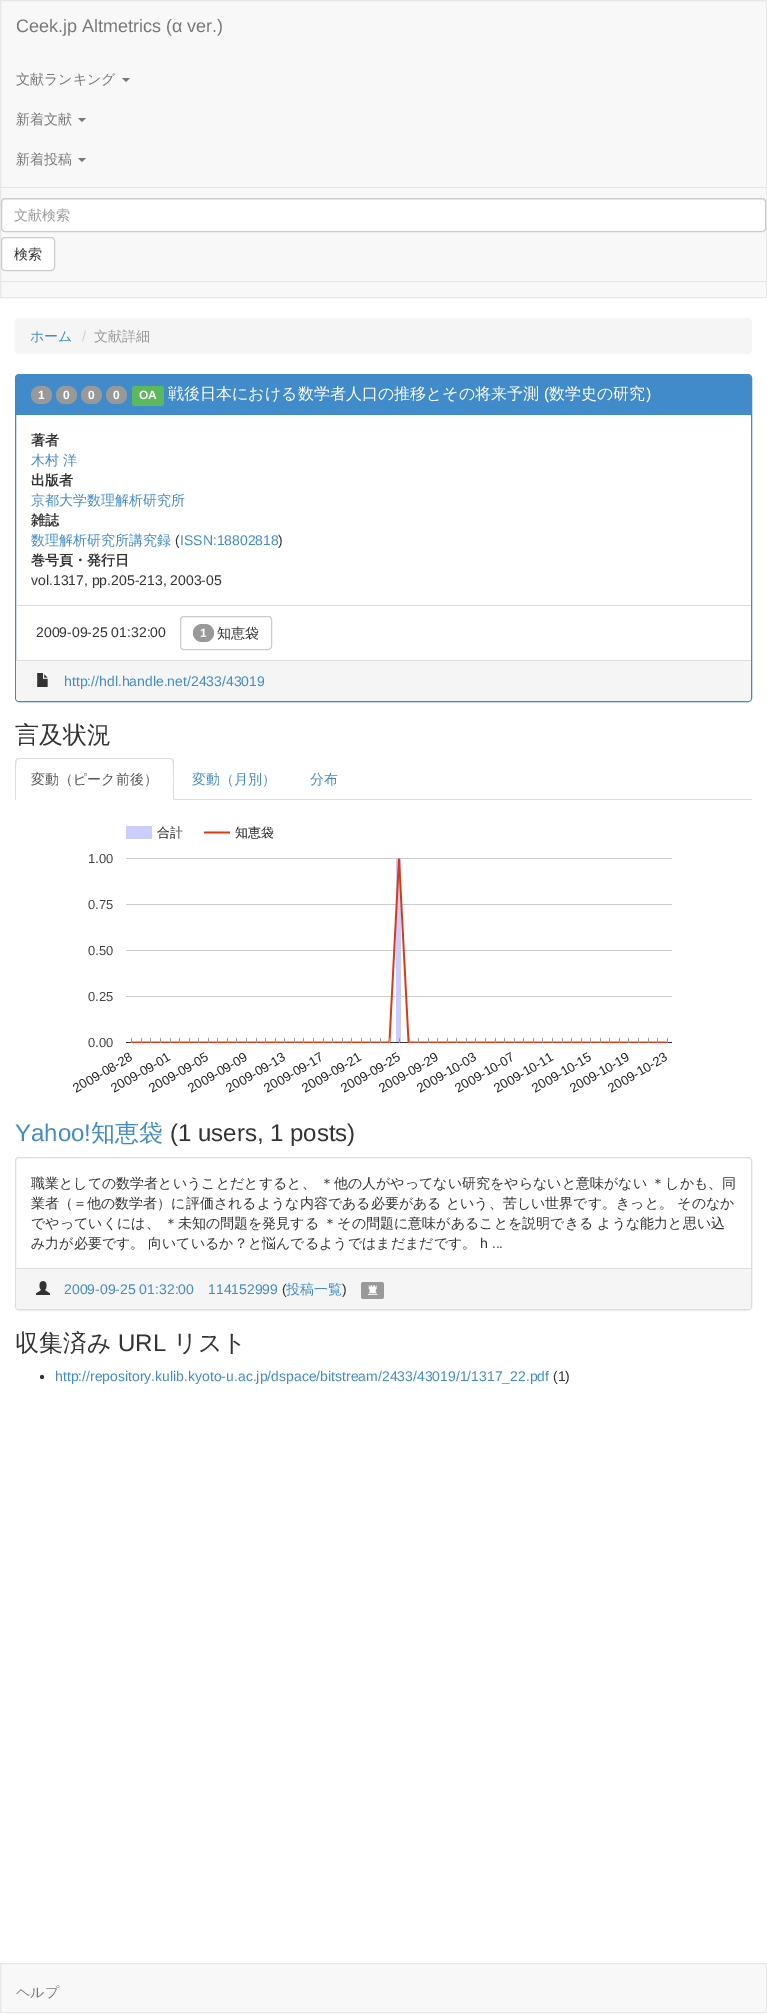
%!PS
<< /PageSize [767 2014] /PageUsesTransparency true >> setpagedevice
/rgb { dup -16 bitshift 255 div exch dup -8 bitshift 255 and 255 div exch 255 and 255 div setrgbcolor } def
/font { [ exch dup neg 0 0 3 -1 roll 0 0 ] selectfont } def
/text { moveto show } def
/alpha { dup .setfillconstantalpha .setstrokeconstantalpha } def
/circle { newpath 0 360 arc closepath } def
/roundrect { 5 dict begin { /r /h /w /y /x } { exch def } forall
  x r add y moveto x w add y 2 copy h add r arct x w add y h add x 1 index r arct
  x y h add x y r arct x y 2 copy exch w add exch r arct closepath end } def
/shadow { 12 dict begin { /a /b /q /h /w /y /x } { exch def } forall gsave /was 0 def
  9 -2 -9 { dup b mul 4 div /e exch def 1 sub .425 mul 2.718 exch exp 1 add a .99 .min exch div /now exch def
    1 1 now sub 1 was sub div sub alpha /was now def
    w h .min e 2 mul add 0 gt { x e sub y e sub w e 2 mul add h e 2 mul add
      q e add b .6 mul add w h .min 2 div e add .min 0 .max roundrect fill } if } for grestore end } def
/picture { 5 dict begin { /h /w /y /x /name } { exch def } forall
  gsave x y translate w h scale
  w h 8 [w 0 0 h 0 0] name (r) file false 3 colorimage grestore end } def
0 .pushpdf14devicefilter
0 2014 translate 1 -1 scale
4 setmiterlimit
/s1 { /LiberationSans-Regular 18 font 16#777777 rgb } def
/s2 { /WenQuanYiZenHei-Medium 14 font 16#777777 rgb } def
/s3 { /WenQuanYiZenHei-Medium 14 font 16#999999 rgb } def
/s4 { /WenQuanYiZenHei-Medium 14 font 16#333333 rgb } def
/s5 { /WenQuanYiZenHei-Medium 14 font 16#428BCA rgb } def
/s6 { /LiberationSans-Regular 14 font 16#CCCCCC rgb } def
/s7 { /LiberationSans-Bold 12 font 16#FFFFFF rgb } def
/s8 { /WenQuanYiZenHei-Medium 16 font 16#FFFFFF rgb } def
/s9 { /LiberationSans-Regular 16 font 16#FFFFFF rgb } def
/s10 { /WenQuanYiZenHei-Bold 14 font 16#333333 rgb } def
/s11 { /LiberationSans-Regular 14 font 16#333333 rgb } def
/s12 { /LiberationSans-Regular 14 font 16#428BCA rgb } def
/s13 { /WenQuanYiZenHei-Medium 24 font 16#333333 rgb } def
/s14 { /WenQuanYiZenHei-Medium 14 font 16#555555 rgb } def
/s15 { /WenQuanYiZenHei-Medium 13 font 16#222222 rgb } def
/s16 { /LiberationSans-Regular 13 font 16#444444 rgb } def
/s17 { /LiberationSans-Regular 24 font 16#428BCA rgb } def
/s18 { /WenQuanYiZenHei-Medium 24 font 16#428BCA rgb } def
/s19 { /LiberationSans-Regular 24 font 16#333333 rgb } def
16#FFFFFF rgb
0 0 767 2014 rectfill
16#F8F8F8 rgb
0.5 0.5 moveto 766.5 0.5 lineto 766.5 297.5 lineto 0.5 297.5 lineto closepath gsave fill grestore
16#E7E7E7 rgb
stroke
s1
(Ceek.jp Altmetrics \(α ver.\)) 16 32 text
s2
(文献ランキング) 16 84 text
122 78 moveto 130 78 lineto 126 82 lineto closepath fill
(新着文献) 16 124 text
78 118 moveto 86 118 lineto 82 122 lineto closepath fill
(新着投稿) 16 164 text
78 158 moveto 86 158 lineto 82 162 lineto closepath fill
16#E6E6E6 rgb
0 187 767 1 rectfill
0 281 767 1 rectfill
16#FFFFFF rgb
1 198 765 34 4 roundrect fill
16#ECECEC rgb
5 200 moveto 762 200 lineto 764 200 765 201 765 203 curveto 765 201 764 199 762 199 curveto 5 199 lineto 3 199 2 201 2 203 curveto 2 201 3 200 5 200 curveto closepath fill
16#CCCCCC rgb
1.5 198.5 764 33 3.5 roundrect stroke
s3
(文献検索) 14 220 text
16#FFFFFF rgb
1.5 237.5 53 33 3.5 roundrect gsave fill grestore
16#CCCCCC rgb
stroke
s4
(検索) 14 259 text
16#F5F5F5 rgb
15 318 737 36 4 roundrect fill
s5
(ホーム) 30 341 text
s6
(/) 82 341 text
s3
(文献詳細) 94 341 text
16#000000 rgb
15 375 737 328 4 0.5 0.05 shadow
16#FFFFFF rgb
15.5 374.5 736 327 3.5 roundrect gsave fill grestore
16#428BCA rgb
stroke
19 375 moveto 748 375 lineto 749.5 375 751 376.5 751 378 curveto 751 415 lineto 16 415 lineto 16 378 lineto 16 376.5 17.5 375 19 375 curveto closepath fill
16#999999 rgb
31 386 21 18 9 roundrect fill
s7
(1) 38 399 text
16#999999 rgb
56 386 21 18 9 roundrect fill
s7
(0) 63 399 text
16#999999 rgb
81 386 21 18 9 roundrect fill
s7
(0) 88 399 text
16#999999 rgb
106 386 21 18 9 roundrect fill
s7
(0) 113 399 text
16#5CB85C rgb
132 386 32 20 3 roundrect fill
s7
(OA) 139 399 text
s8
(戦後日本における数学者人口の推移とその将来予測) 168 399 text
s9
(\() 544 399 text
s8
(数学史の研究) 549 399 text
s9
(\)) 646 399 text
s10
(著者) 31 445 text
s5
(木村 洋) 31 465 text
s10
(出版者) 31 485 text
s5
(京都大学数理解析研究所) 31 505 text
s10
(雑誌) 31 525 text
s5
(数理解析研究所講究録) 31 545 text
s11
(\() 175 545 text
s12
(ISSN:18802818) 180 545 text
s11
(\)) 278 545 text
s10
(巻号頁・発行日) 31 565 text
s11
(vol.1317, pp.205-213, 2003-05) 31 585 text
16#DDDDDD rgb
16 605 735 1 rectfill
s11
(2009-09-25 01:32:00) 36 637 text
16#CCCCCC rgb
180.5 616.5 91 33 3.5 roundrect stroke
16#999999 rgb
193 624 21 18 9 roundrect fill
s7
(1) 200 637 text
s4
(知恵袋) 217 638 text
16#F5F5F5 rgb
16 660 moveto 751 660 lineto 751 698 lineto 751 699.5 749.5 701 748 701 curveto 19 701 lineto 17.5 701 16 699.5 16 698 curveto closepath fill
16#DDDDDD rgb
16 660 735 1 rectfill
(pic1.raw) 37 673 11 14 picture
s12
(http://hdl.handle.net/2433/43019) 64 686 text
s13
(言及状況) 15 743 text
16#DDDDDD rgb
174 799 578 1 rectfill
19 758 moveto 16 759 lineto 17 760 lineto 19 759 lineto 170 759 lineto 172 760 lineto 173 759 lineto 170 758 lineto closepath fill
174 800 moveto 174 762 lineto 174 761 174 760 173 759 curveto 172 760 lineto 174 762 173 794 173 799 curveto closepath fill
15 800 moveto 16 799 lineto 16 794 15 762 17 760 curveto 16 759 lineto 15 762 lineto closepath fill
s14
(変動（ピーク前後）) 31 784 text
s5
(変動（月別）) 192 784 text
(分布) 310 784 text
(pic2.raw) 126 826 546 217 picture
s15
(合計) 157 837 text
(知恵袋) 235 837 text
s16
(1.00) 88 863 text
(0.75) 88 909 text
(0.50) 88 955 text
(0.25) 88 1001 text
(0.00) 88 1047 text
16#222222 rgb
gsave 76 1093 translate -30 rotate 0 0 moveto (2009-08-28) show grestore
gsave 114 1093 translate -30 rotate 0 0 moveto (2009-09-01) show grestore
gsave 152 1093 translate -30 rotate 0 0 moveto (2009-09-05) show grestore
gsave 191 1093 translate -30 rotate 0 0 moveto (2009-09-09) show grestore
gsave 229 1093 translate -30 rotate 0 0 moveto (2009-09-13) show grestore
gsave 267 1093 translate -30 rotate 0 0 moveto (2009-09-17) show grestore
gsave 305 1093 translate -30 rotate 0 0 moveto (2009-09-21) show grestore
gsave 344 1093 translate -30 rotate 0 0 moveto (2009-09-25) show grestore
gsave 382 1093 translate -30 rotate 0 0 moveto (2009-09-29) show grestore
gsave 420 1093 translate -30 rotate 0 0 moveto (2009-10-03) show grestore
gsave 458 1093 translate -30 rotate 0 0 moveto (2009-10-07) show grestore
gsave 497 1093 translate -30 rotate 0 0 moveto (2009-10-11) show grestore
gsave 535 1093 translate -30 rotate 0 0 moveto (2009-10-15) show grestore
gsave 573 1093 translate -30 rotate 0 0 moveto (2009-10-19) show grestore
gsave 611 1093 translate -30 rotate 0 0 moveto (2009-10-23) show grestore
s17
(Yahoo!) 15 1141 text
s18
(知恵袋) 91 1141 text
s19
(\(1 users, 1 posts\)) 170 1141 text
16#000000 rgb
15 1158 737 153 4 0.5 0.05 shadow
16#FFFFFF rgb
15.5 1157.5 736 152 3.5 roundrect gsave fill grestore
16#DDDDDD rgb
stroke
s4
(職業としての数学者ということだとすると、 ＊他の人がやってない研究をやらないと意味がない ＊しかも、同) 31 1188 text
(業者（＝他の数学者）に評価されるような内容である必要がある という、苦しい世界です。きっと。 そのなか) 31 1208 text
(でやっていくには、 ＊未知の問題を発見する ＊その問題に意味があることを説明できる ような能力と思い込) 31 1228 text
(み力が必要です。) 31 1248 text
(向いているか？と悩んでるようではまだまだです。) 148 1248 text
s11
(h ...) 480 1248 text
16#F5F5F5 rgb
16 1268 moveto 751 1268 lineto 751 1306 lineto 751 1307.5 749.5 1309 748 1309 curveto 19 1309 lineto 17.5 1309 16 1307.5 16 1306 curveto closepath fill
16#DDDDDD rgb
16 1268 735 1 rectfill
(pic3.raw) 36 1281 14 14 picture
s12
(2009-09-25 01:32:00) 64 1294 text
(114152999) 208 1294 text
s11
(\() 282 1294 text
s5
(投稿一覧) 286 1294 text
s11
(\)) 342 1294 text
16#999999 rgb
361 1282 23 17 2.5 roundrect fill
(pic4.raw) 367 1285 11 10 picture
s13
(収集済み) 15 1351 text
s19
(URL) 118 1351 text
s13
(リスト) 173 1351 text
42 1377 2 circle fill
s12
(http://repository.kulib.kyoto-u.ac.jp/dspace/bitstream/2433/43019/1/1317_22.pdf) 55 1381 text
s11
(\(1\)) 553 1381 text
16#F8F8F8 rgb
0.5 1963.5 moveto 766.5 1963.5 lineto 766.5 2012.5 lineto 0.5 2012.5 lineto closepath gsave fill grestore
16#E7E7E7 rgb
stroke
s2
(ヘルプ) 16 1997 text
.poppdf14devicefilter showpage
